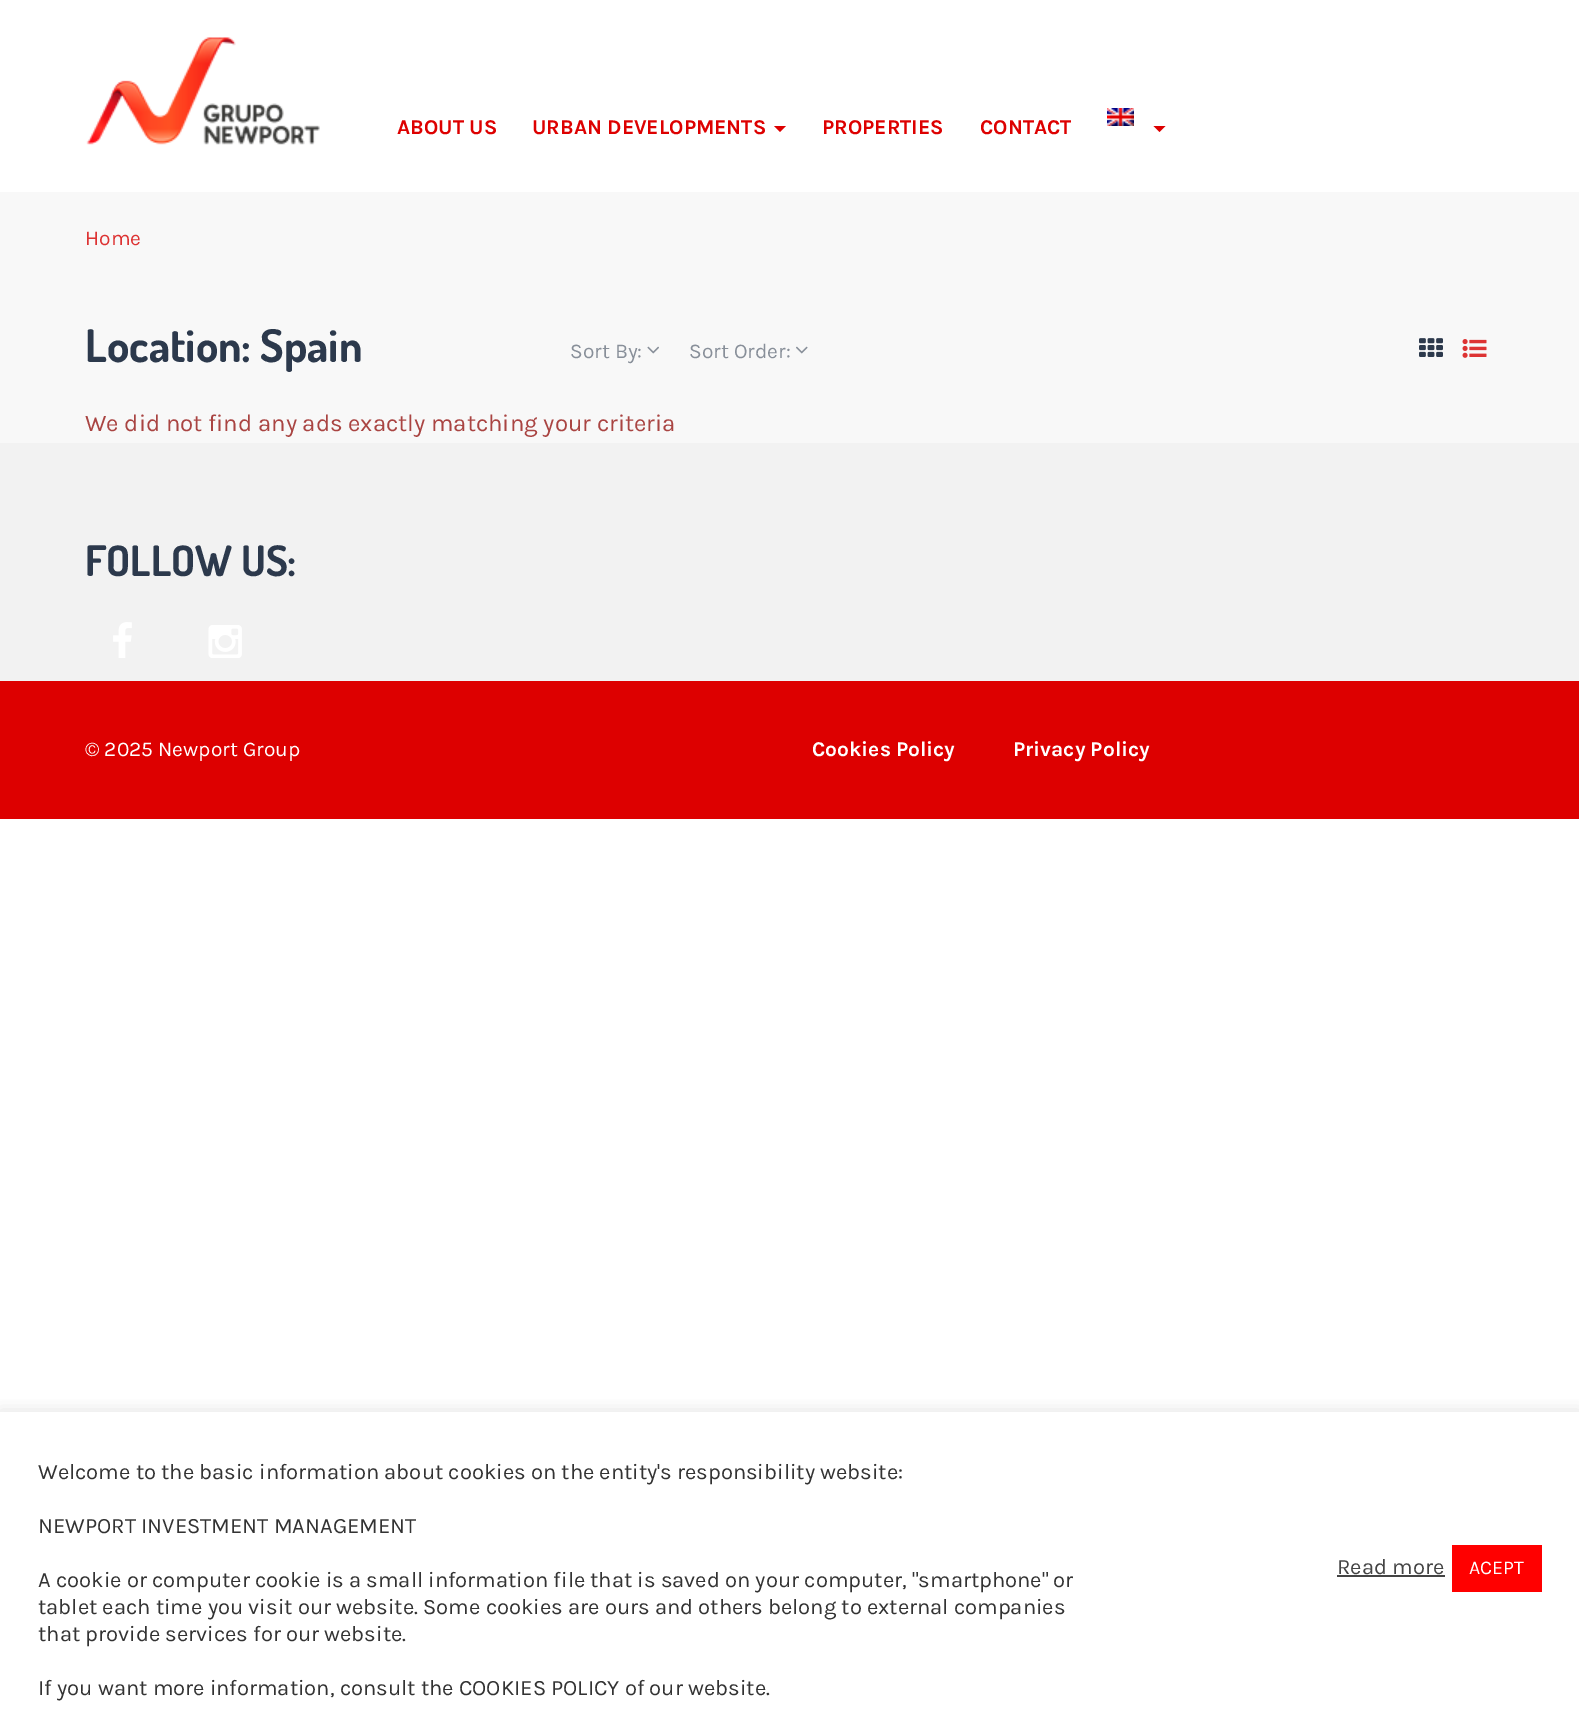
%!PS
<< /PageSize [1579 1723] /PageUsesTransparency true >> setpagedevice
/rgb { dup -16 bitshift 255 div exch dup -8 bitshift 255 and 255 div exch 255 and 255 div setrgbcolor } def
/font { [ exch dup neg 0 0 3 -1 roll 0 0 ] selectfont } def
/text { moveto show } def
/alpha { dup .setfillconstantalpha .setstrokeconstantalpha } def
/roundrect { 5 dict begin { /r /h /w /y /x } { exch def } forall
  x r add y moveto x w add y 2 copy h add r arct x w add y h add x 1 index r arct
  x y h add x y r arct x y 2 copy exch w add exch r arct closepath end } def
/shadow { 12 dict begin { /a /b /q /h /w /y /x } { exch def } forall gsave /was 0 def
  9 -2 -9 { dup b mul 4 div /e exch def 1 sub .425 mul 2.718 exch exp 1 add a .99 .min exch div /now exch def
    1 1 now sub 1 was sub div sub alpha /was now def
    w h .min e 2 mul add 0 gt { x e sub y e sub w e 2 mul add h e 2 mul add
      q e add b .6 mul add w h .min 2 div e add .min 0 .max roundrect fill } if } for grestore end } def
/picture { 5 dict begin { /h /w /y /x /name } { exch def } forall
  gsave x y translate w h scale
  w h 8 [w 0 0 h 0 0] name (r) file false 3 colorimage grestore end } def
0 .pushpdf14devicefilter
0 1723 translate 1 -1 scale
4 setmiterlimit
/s1 { /Karla-Bold 21 font 16#DD0000 rgb } def
/s2 { /Karla-Regular 21 font 16#DD3333 rgb } def
/s3 { /Dosis-Bold 45 font 16#2C394C rgb } def
/s4 { /Karla-Regular 21 font 16#888F99 rgb } def
/s5 { /Karla-Regular 24 font 16#A94442 rgb } def
/s6 { /Dosis-Bold 42 font 16#2C394C rgb } def
/s7 { /Karla-Regular 21 font 16#FFFFFF rgb } def
/s8 { /Karla-Bold 21 font 16#FFFFFF rgb } def
/s9 { /Karla-Regular 22 font 16#333333 rgb } def
/s10 { /Karla-Regular 22 font 16#444444 rgb } def
/s11 { /Karla-Regular 19.5 font 16#FFFFFF rgb } def
16#FFFFFF rgb
0 0 1579 1723 rectfill
(pic1.raw) 86 37 234 108 picture
s1
(ABOUT US) 397 134 text
(URBAN DEVELOPMENTS) 532 134 text
774 126 moveto 786 126 lineto 780 132 lineto closepath fill
(PROPERTIES) 822 134 text
(CONTACT) 980 134 text
(pic2.raw) 1107 108 27 18 picture
1153.5 126 moveto 1165.5 126 lineto 1159.5 132 lineto closepath fill
16#F8F8F8 rgb
0 192 1579 251 rectfill
s2
(Home) 85 245 text
s3
(Location: Spain) 85 362 text
s4
(Sort By:) 570 358 text
(pic3.raw) 647 346 12 8 picture
(Sort Order:) 689 358 text
(pic4.raw) 796 346 12 8 picture
(pic5.raw) 1419 338 24 19 picture
(pic6.raw) 1462 339 25 19 picture
s5
(We did not find any ads exactly matching your criteria) 85 431 text
16#F2F2F2 rgb
0 443 1579 238 rectfill
s6
(FOLLOW US:) 85 576 text
(pic7.raw) 113 622 19 36 picture
(pic8.raw) 208 625 34 33 picture
16#DD0000 rgb
0 681 1579 138 rectfill
s7
(© 2025 Newport Group) 85 756 text
s8
(Cookies Policy) 812 756 text
(Privacy Policy) 1013 756 text
gsave
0 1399 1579 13 rectclip
16#ACABAB rgb
0 1410 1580 312 0 7.5 0.3 shadow
grestore
s9
(Welcome to the basic information about cookies on the entity's responsibility website:) 38 1479 text
(NEWPORT INVESTMENT MANAGEMENT) 38 1533 text
(A cookie or computer cookie is a small information file that is saved on your computer, "smartphone" or) 38 1587 text
(tablet each time you visit our website. Some cookies are ours and others belong to external companies) 38 1614 text
(that provide services for our website.) 38 1641 text
(If you want more information, consult the COOKIES POLICY of our website.) 38 1695 text
s10
(Read more) 1337 1574 text
1337 1575 108 2 rectfill
16#FF0000 rgb
1452 1545 90 47 rectfill
s11
(ACEPT) 1469 1574 text
.poppdf14devicefilter showpage
